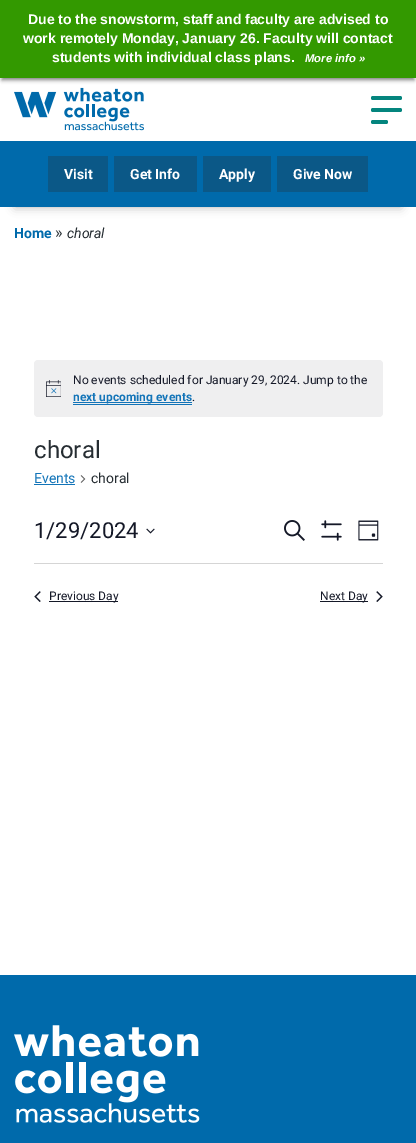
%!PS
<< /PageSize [416 1143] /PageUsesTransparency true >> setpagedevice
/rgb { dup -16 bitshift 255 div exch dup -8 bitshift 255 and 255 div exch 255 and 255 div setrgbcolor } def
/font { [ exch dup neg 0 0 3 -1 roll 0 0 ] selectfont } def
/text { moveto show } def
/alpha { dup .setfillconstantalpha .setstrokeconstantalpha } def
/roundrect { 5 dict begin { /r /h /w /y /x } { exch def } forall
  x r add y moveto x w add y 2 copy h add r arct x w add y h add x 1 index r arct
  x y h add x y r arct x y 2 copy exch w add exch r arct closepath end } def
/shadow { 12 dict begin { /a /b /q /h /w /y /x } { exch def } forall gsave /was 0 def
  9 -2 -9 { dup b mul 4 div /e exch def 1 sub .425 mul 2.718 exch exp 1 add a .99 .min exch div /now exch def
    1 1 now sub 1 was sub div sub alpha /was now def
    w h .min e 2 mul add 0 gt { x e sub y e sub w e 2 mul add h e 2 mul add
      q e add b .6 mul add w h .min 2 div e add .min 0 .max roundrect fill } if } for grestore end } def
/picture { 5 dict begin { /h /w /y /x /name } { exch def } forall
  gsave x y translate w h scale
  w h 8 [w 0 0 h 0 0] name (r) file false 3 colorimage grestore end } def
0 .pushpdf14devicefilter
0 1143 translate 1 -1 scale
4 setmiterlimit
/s1 { /LiberationSans-Bold 14 font 16#FFFFFF rgb } def
/s2 { /LiberationSans-BoldItalic 11.25 font 16#FFFFFF rgb } def
/s3 { /Roboto-Bold 14 font 16#FFFFFF rgb } def
/s4 { /Roboto-Bold 14 font 16#006AAB rgb } def
/s5 { /Roboto-Regular 16 font 16#262D32 rgb } def
/s6 { /Roboto-Italic 14 font 16#262D32 rgb } def
/s7 { /Roboto-Regular 12 font 16#141827 rgb } def
/s8 { /Roboto-Bold 12 font 16#1274B8 rgb } def
/s9 { /Roboto-Regular 24 font 16#262D32 rgb } def
/s10 { /Roboto-Regular 14 font 16#1274B8 rgb } def
/s11 { /Roboto-Regular 14 font 16#262D32 rgb } def
/s12 { /Roboto-Regular 22 font 16#141827 rgb } def
16#FFFFFF rgb
0 0 416 1143 rectfill
16#000000 rgb
2 6 412 74 0 2 0.5 shadow
16#339900 rgb
0 0 416 78 rectfill
s1
(Due to the snowstorm, staff and faculty are advised to) 28 24 text
(work remotely Monday, January 26. Faculty will contact) 23 43 text
(students with individual class plans.) 52 62 text
s2
(More info ») 305 62 text
(pic1.raw) 14 87 130 44 picture
16#04857E rgb
371 96 31 4 2 roundrect fill
371 108 31 4 2 roundrect fill
371 120 17 4 2 roundrect fill
16#000000 rgb
15 171 386 36 0 5 0.3 shadow
16#006AAB rgb
0 141 416 66 rectfill
16#0B5887 rgb
48 156 60 36 rectfill
s3
(Visit) 64 179 text
16#0B5887 rgb
114 156 83 36 rectfill
s3
(Get Info) 130 179 text
16#0B5887 rgb
203 156 68 36 rectfill
s3
(Apply) 219 179 text
16#0B5887 rgb
277 156 91 36 rectfill
s3
(Give Now) 293 179 text
s4
(Home) 14 238 text
s5
(») 55 238 text
s6
(choral) 67 238 text
16#EFEFF0 rgb
34 360 349 57 4 roundrect fill
(pic2.raw) 46 380 15 17 picture
s7
(No events scheduled for January 29, 2024. Jump to the) 73 384 text
16#1274B8 rgb
73 402 119 1 rectfill
s8
(next upcoming events) 73 401 text
73 404 119 1 rectfill
s7
(.) 192 401 text
s9
(choral) 34 458 text
s10
(Events) 34 483 text
34 484 41 1 rectfill
(pic3.raw) 80 475 6 8 picture
s11
(choral) 91 483 text
s12
(1/29/2024) 34 538 text
(pic4.raw) 146 528 9 6 picture
(pic5.raw) 284 520 21 21 picture
(pic6.raw) 321 520 21 21 picture
(pic7.raw) 358 520 21 21 picture
16#D5D5D5 rgb
34 563 349 1 rectfill
(pic8.raw) 34 591 7 11 picture
16#141827 rgb
49 601 69 1 rectfill
s7
(Previous Day) 49 600 text
320 601 48 1 rectfill
(Next Day) 320 600 text
(pic9.raw) 376 591 7 11 picture
16#006AAB rgb
0 975 416 168 rectfill
(pic10.raw) 14 1025 186 98 picture
.poppdf14devicefilter showpage
